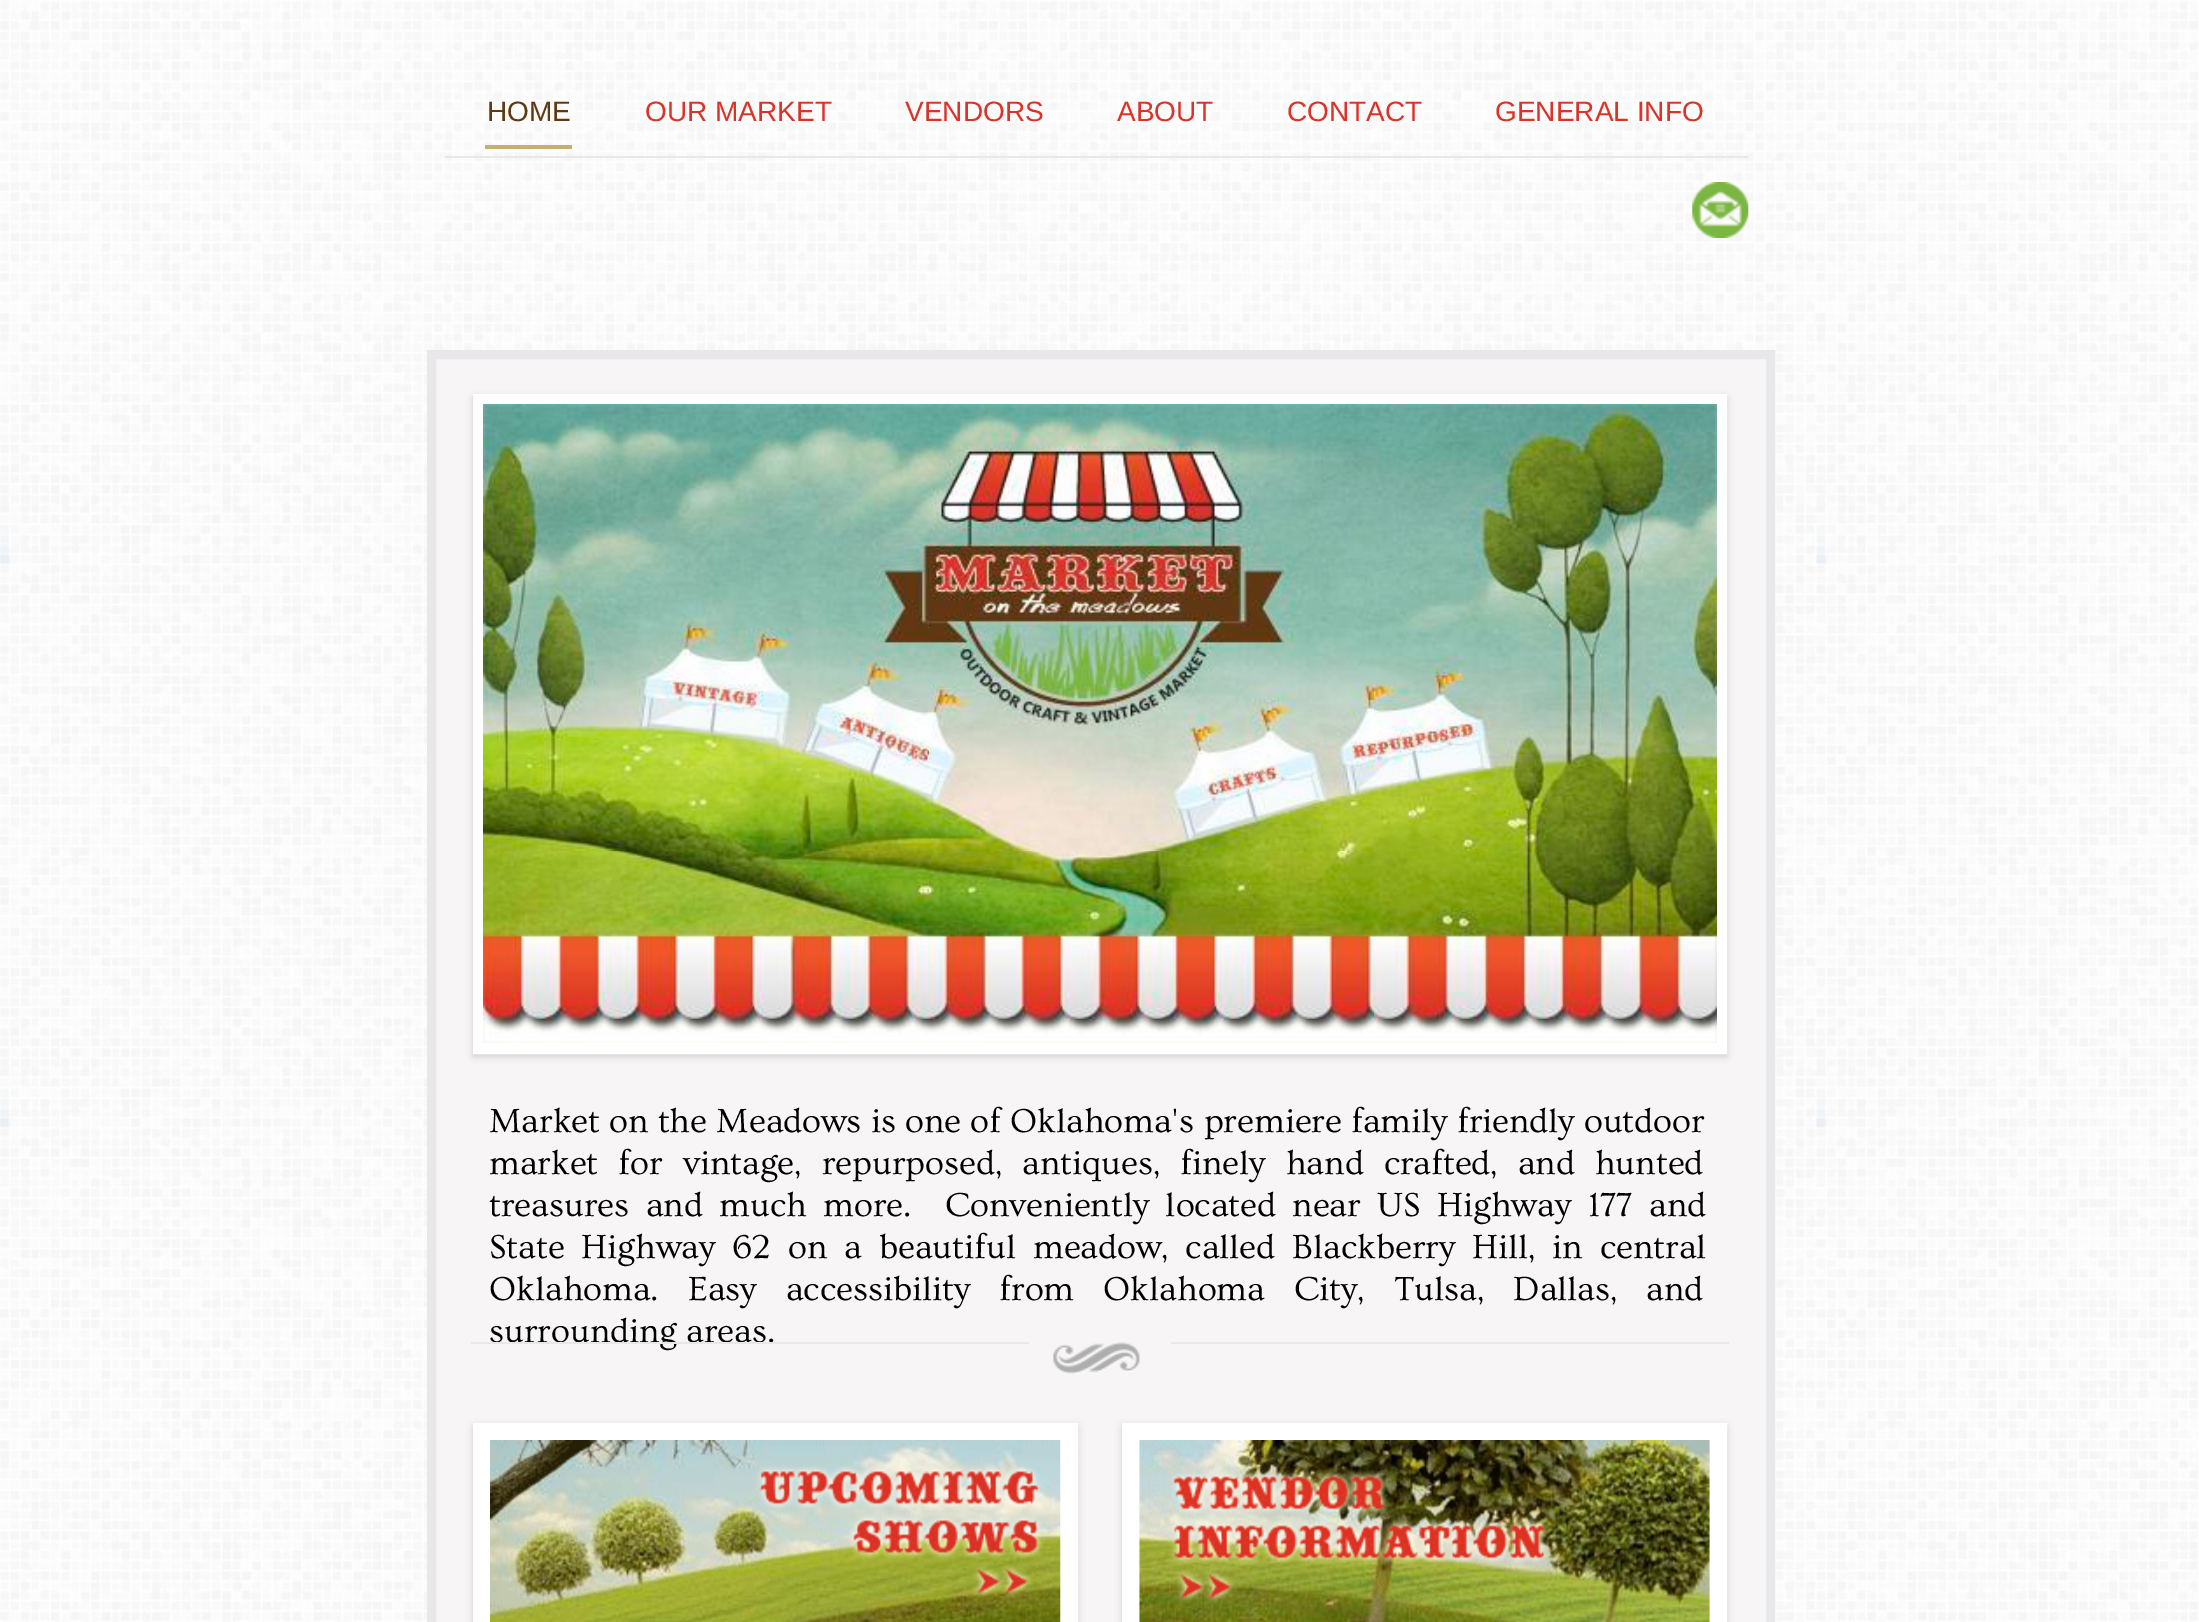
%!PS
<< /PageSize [2199 1622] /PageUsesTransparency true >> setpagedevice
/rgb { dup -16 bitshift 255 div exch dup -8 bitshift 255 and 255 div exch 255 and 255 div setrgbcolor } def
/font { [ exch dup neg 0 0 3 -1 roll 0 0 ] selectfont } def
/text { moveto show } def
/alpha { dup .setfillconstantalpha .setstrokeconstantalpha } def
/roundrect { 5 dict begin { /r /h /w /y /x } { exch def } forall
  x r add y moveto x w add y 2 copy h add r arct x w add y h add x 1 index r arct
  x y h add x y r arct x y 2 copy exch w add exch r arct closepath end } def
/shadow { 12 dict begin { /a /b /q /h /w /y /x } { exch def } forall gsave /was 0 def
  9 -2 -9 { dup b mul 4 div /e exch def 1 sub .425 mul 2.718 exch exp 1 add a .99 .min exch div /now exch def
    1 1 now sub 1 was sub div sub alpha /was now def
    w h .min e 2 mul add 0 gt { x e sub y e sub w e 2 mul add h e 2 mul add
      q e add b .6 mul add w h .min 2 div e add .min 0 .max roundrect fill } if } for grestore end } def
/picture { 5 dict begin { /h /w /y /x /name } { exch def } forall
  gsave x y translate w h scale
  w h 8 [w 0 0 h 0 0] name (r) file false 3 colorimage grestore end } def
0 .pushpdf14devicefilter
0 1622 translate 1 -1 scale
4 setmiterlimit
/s1 { /LiberationSans-Regular 28 font 16#603913 rgb } def
/s2 { /LiberationSans-Regular 28 font 16#DB3327 rgb } def
/s3 { /Ovo-Regular 35 font 16#000000 rgb } def
16#FFFFFF rgb
0 0 2199 1622 rectfill
(pic1.raw) 0 0 2198 1622 picture
16#F7F5F6 rgb
431.5 354.5 moveto 1770.5 354.5 lineto 1770.5 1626.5 lineto 431.5 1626.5 lineto closepath gsave fill grestore
16#E8E8EA rgb
9 setlinewidth
stroke
445 156 1303 2 rectfill
16#C5B16E rgb
485 145 87 4 rectfill
s1
(HOME) 487 121 text
s2
(OUR MARKET) 645 121 text
(VENDORS) 905 121 text
(ABOUT) 1117 121 text
(CONTACT) 1287 121 text
(GENERAL INFO) 1495 121 text
(pic2.raw) 1692 182 57 56 picture
16#000000 rgb
473 397 1254 660 0 3.5 0.15 shadow
16#FFFFFF rgb
11 setlinewidth
478.5 399.5 1243 649 rectstroke
(pic3.raw) 483 404 1234 639 picture
/Ovo-Regular 35 font
16#000000 rgb
489 1132 moveto 0.25 0 32 (Market on the Meadows is one of Oklahoma's premiere family friendly outdoor) widthshow
489 1174 moveto 11.25 0 32 (market for vintage, repurposed, antiques, finely hand crafted, and hunted) widthshow
489 1216 moveto 7.6 0 32 (treasures and much more.  Conveniently located near US Highway 177 and) widthshow
489 1258 moveto 8 0 32 (State Highway 62 on a beautiful meadow, called Blackberry Hill, in central) widthshow
489 1300 moveto 20.25 0 32 (Oklahoma. Easy accessibility from Oklahoma City, Tulsa, Dallas, and) widthshow
(surrounding areas.) 489 1342 text
16#E8E8EA rgb
471 1342 558 2 rectfill
(pic4.raw) 1053 1342 87 32 picture
1171 1342 558 2 rectfill
16#000000 rgb
473 1426 605 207 0 3.5 0.15 shadow
16#FFFFFF rgb
18 setlinewidth
482 1432 587 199 rectstroke
(pic5.raw) 490 1440 571 182 picture
16#000000 rgb
1122 1426 605 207 0 3.5 0.15 shadow
16#FFFFFF rgb
1131 1432 587 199 rectstroke
(pic6.raw) 1139 1440 571 182 picture
.poppdf14devicefilter showpage
